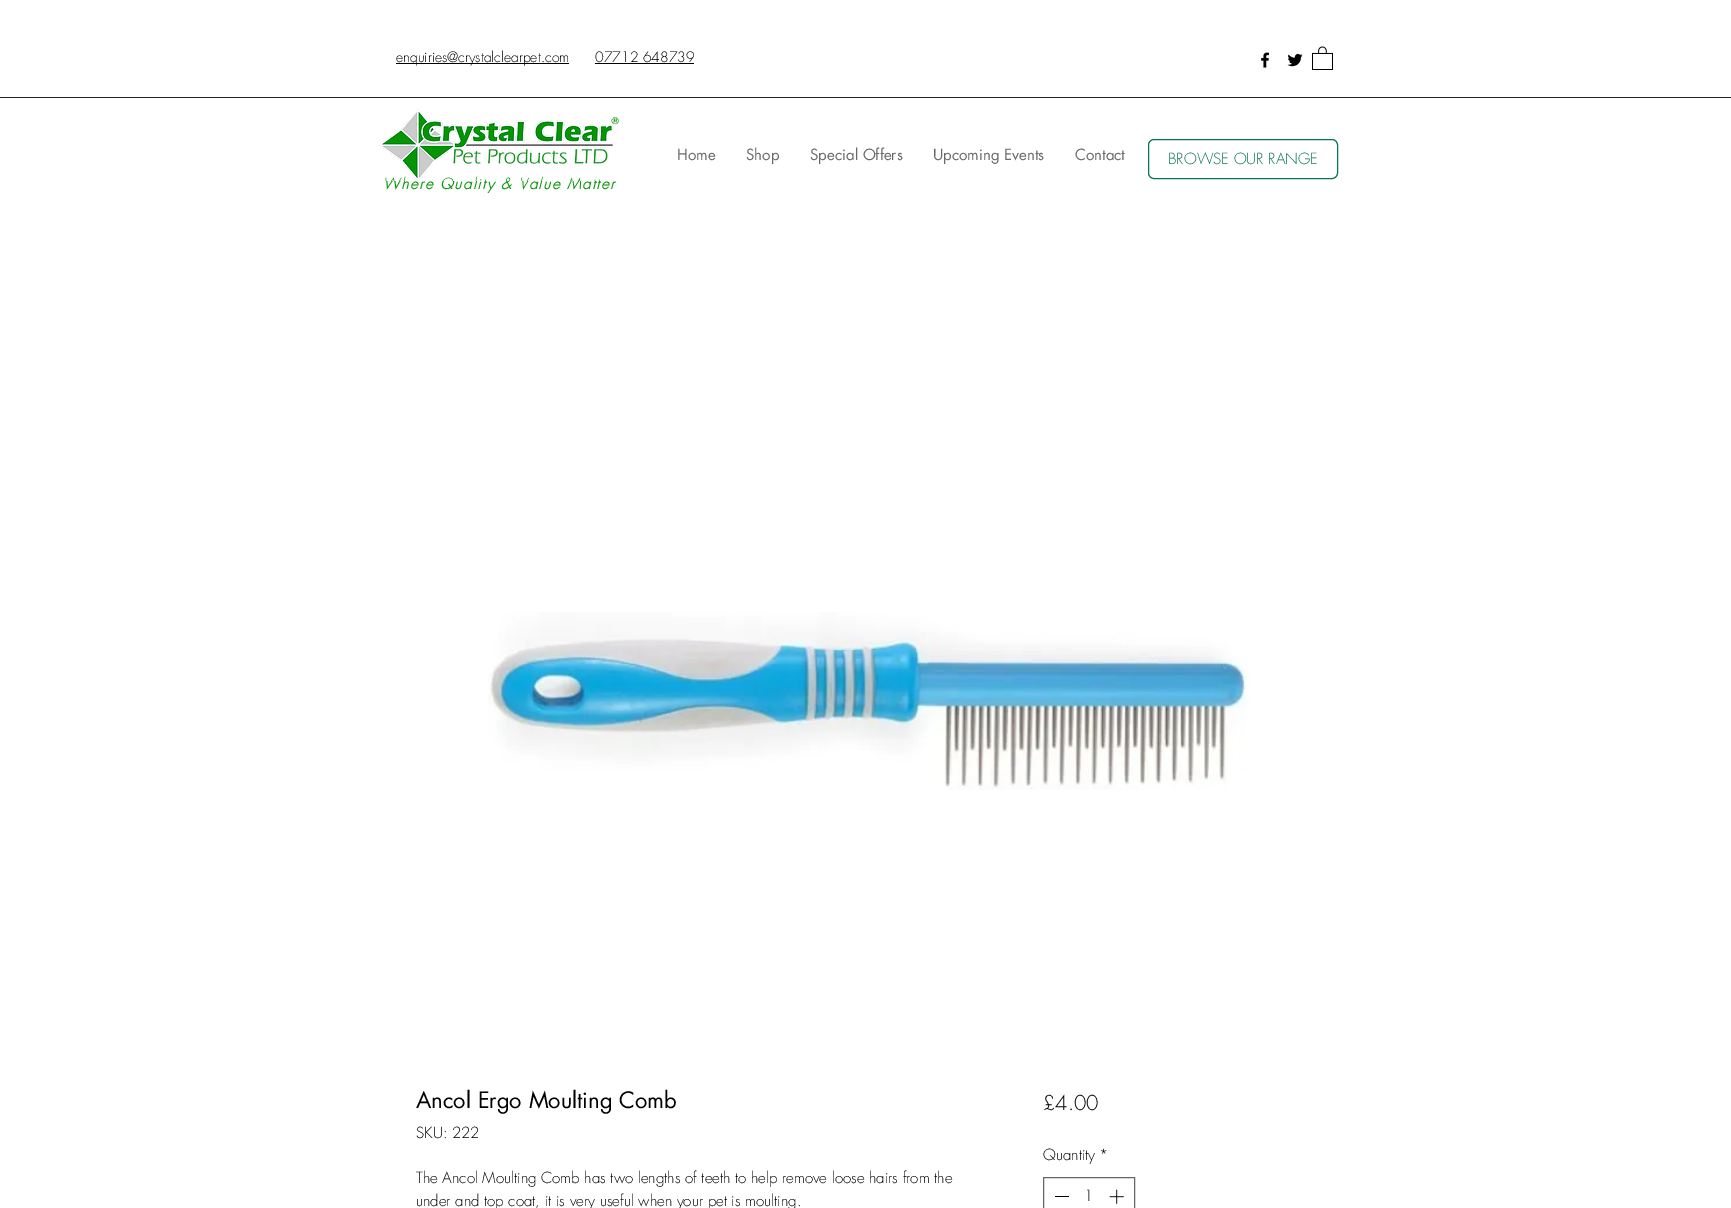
%!PS
<< /PageSize [1731 1208] >> setpagedevice
/rgb { dup -16 bitshift 255 div exch dup -8 bitshift 255 and 255 div exch 255 and 255 div setrgbcolor } def
/font { [ exch dup neg 0 0 3 -1 roll 0 0 ] selectfont } def
/text { moveto show } def
/roundrect { 5 dict begin { /r /h /w /y /x } { exch def } forall
  x r add y moveto x w add y 2 copy h add r arct x w add y h add x 1 index r arct
  x y h add x y r arct x y 2 copy exch w add exch r arct closepath end } def
/picture { 5 dict begin { /h /w /y /x /name } { exch def } forall
  gsave x y translate w h scale
  w h 8 [w 0 0 h 0 0] name (r) file false 3 colorimage grestore end } def
0 1208 translate 1 -1 scale
4 setmiterlimit
/s1 { /futura-Light 14 font 16#000000 rgb } def
/s2 { /futura-Regular 15 font 16#696969 rgb } def
/s3 { /futura-Light 15 font 16#0A7552 rgb } def
/s4 { /futura-Regular 22 font 16#000000 rgb } def
/s5 { /futura-Light 15 font 16#000000 rgb } def
/s6 { /futura-Light 20 font 16#000000 rgb } def
16#FFFFFF rgb
0 0 1731 1208 rectfill
16#000000 rgb
396 63 173 1 rectfill
s1
(enquiries@crystalclearpet.com) 396 62 text
(07712 648739) 595 62 text
595 63 99 1 rectfill
(pic1.raw) 1261 52 9 16 picture
(pic2.raw) 1287 53 16 14 picture
(pic3.raw) 1312 46 21 24 picture
16#262626 rgb
0 97 1731 1 rectfill
/futura-BoldItalic 15 font
16#079609 rgb
383 189 moveto 1.5 0 (Where Quality & Value Matter) ashow
(pic4.raw) 379 109 241 72 picture
s2
(Home) 677 160 text
(Shop) 746 160 text
(Special Offers) 810 160 text
(Upcoming Events) 933 160 text
(Contact) 1075 160 text
16#0A7552 rgb
1148.5 139.5 189 39 5.5 roundrect stroke
s3
(BROWSE OUR RANGE) 1168 164 text
(pic5.raw) 488 612 762 178 picture
s4
(Ancol Ergo Moulting Comb) 416 1108 text
s5
(SKU: 222) 416 1138 text
(The Ancol Moulting Comb has two lengths of teeth to help remove loose hairs from the) 416 1183 text
(under and top coat, it is very useful when your pet is moulting.) 416 1206 text
s6
(£4.00) 1043 1110 text
s5
(Quantity) 1043 1160 text
(*) 1099 1160 text
16#666666 rgb
1043.5 1177.5 91 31 rectstroke
16#000000 rgb
1055 1196 14 1 rectfill
(1) 1084 1201 text
(pic6.raw) 1109 1189 15 15 picture
showpage
